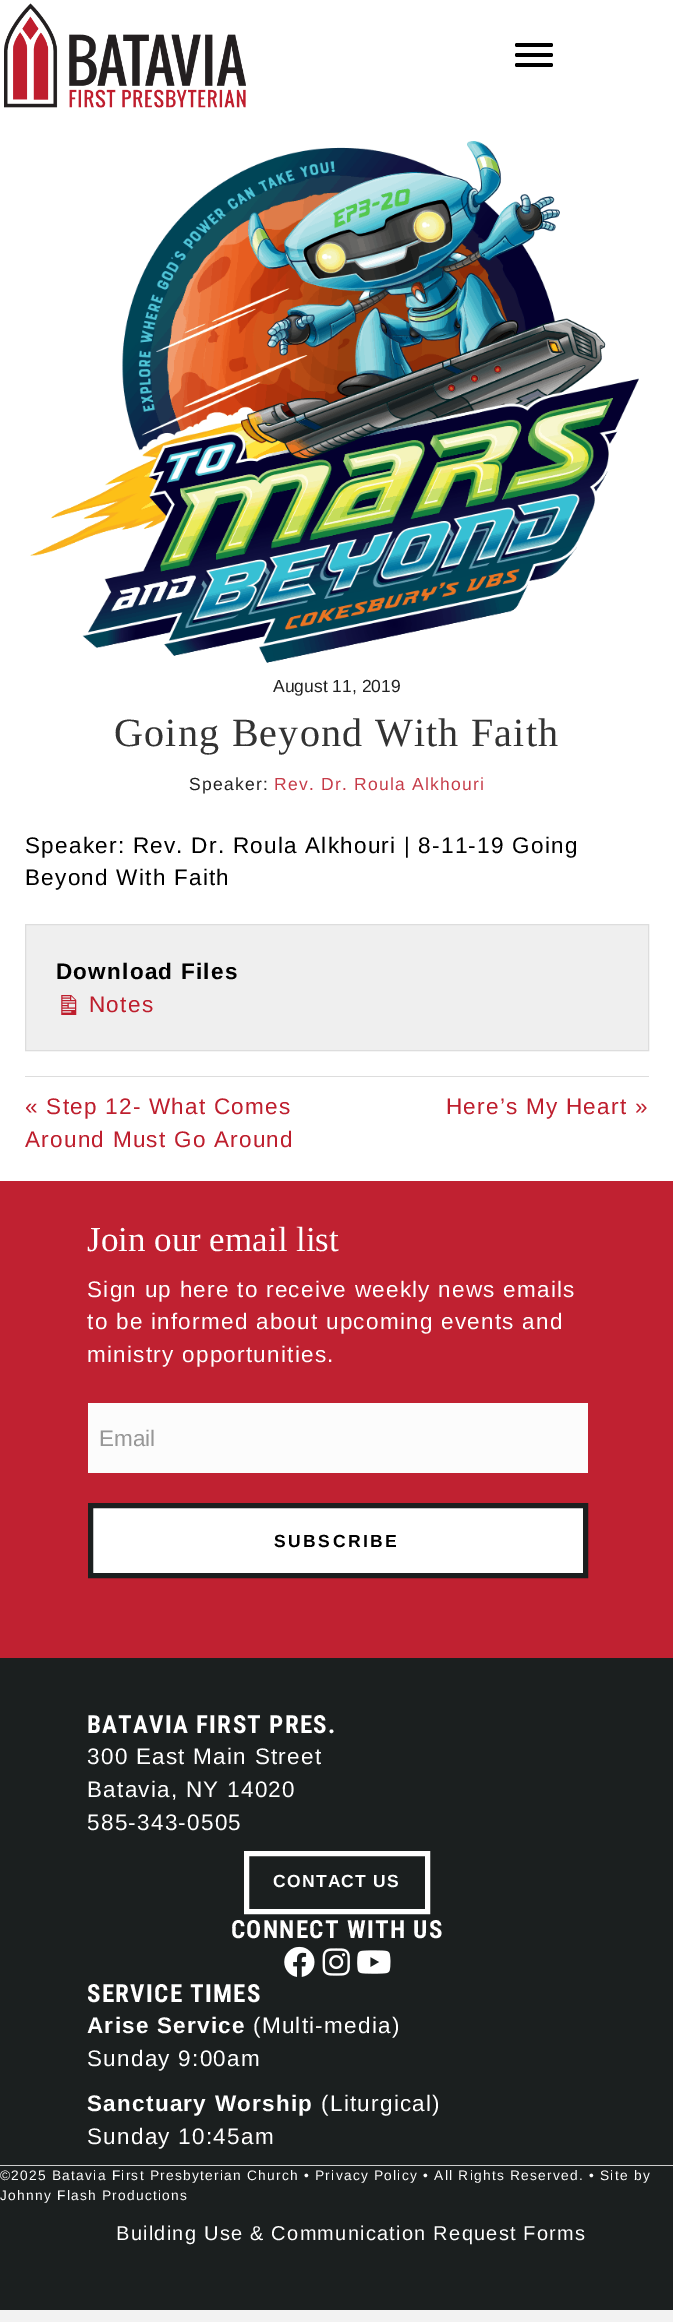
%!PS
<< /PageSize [673 2322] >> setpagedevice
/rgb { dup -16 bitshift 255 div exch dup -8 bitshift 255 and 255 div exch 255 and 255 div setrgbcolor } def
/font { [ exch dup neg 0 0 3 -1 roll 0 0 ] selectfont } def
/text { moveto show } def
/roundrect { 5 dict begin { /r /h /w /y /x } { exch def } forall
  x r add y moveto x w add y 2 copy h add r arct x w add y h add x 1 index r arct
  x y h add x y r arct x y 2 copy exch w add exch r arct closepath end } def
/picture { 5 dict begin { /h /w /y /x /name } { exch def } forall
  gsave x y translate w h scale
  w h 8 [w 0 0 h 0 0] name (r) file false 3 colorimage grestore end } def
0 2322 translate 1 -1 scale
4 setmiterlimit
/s1 { /LiberationSans-Regular 17.5 font 16#212121 rgb } def
/s2 { /LiberationSerif-Regular 35 font 16#FFFFFF rgb } def
/s3 { /LiberationSans-Regular 22.5 font 16#979797 rgb } def
16#F2F2F2 rgb
0 0 673 2322 rectfill
16#FFFFFF rgb
0 0 673 1181 rectfill
(pic1.raw) 4 3 242 105 picture
16#000000 rgb
515 53 38 4 2 roundrect fill
515 43 38 4 2 roundrect fill
515 63 38 4 2 roundrect fill
(pic2.raw) 30 141 609 522 picture
s1
(August 11, 2019) 273 692 text
/LiberationSerif-Regular 40 font
16#333333 rgb
114 746 moveto 1.25 0 (Going Beyond With Faith) ashow
/LiberationSans-Regular 17.5 font
16#212121 rgb
189 790 moveto 1.25 0 (Speaker:) ashow
16#C63B48 rgb
274 790 moveto 1.25 0 (Rev. Dr. Roula Alkhouri) ashow
/LiberationSans-Regular 22.5 font
16#000000 rgb
25 853 moveto 1.25 0 (Speaker: Rev. Dr. Roula Alkhouri | 8-11-19 Going) ashow
25 885 moveto 1.25 0 (Beyond With Faith) ashow
16#EFEFEF rgb
25.5 924.5 moveto 648.5 924.5 lineto 648.5 1050.5 lineto 25.5 1050.5 lineto closepath gsave fill grestore
16#DDDDDD rgb
stroke
/LiberationSans-Bold 22.5 font
16#000000 rgb
56 979 moveto 1.25 0 (Download Files) ashow
(pic3.raw) 61 995 16 20 picture
/LiberationSans-Regular 22.5 font
16#BE1E2D rgb
89 1012 moveto 1.25 0 (Notes) ashow
16#DDDDDD rgb
25 1076 624 1 rectfill
16#BE1E2D rgb
25 1114 moveto 1.25 0 (« Step 12- What Comes) ashow
25 1147 moveto 1.25 0 (Around Must Go Around) ashow
446 1114 moveto 1.25 0 (Here’s My Heart ») ashow
16#C02131 rgb
0 1181 673 477 rectfill
s2
(Join our email list) 87 1251 text
/LiberationSans-Regular 22.5 font
87 1297 moveto 1.25 0 (Sign up here to receive weekly news emails) ashow
87 1329 moveto 1.25 0 (to be informed about upcoming events and) ashow
87 1362 moveto 1.25 0 (ministry opportunities.) ashow
16#FCFCFC rgb
88 1403 500 70 rectfill
s3
(Email) 99 1446 text
16#FFFFFF rgb
90.5 1505.5 moveto 585.5 1505.5 lineto 585.5 1575.5 lineto 90.5 1575.5 lineto closepath gsave fill grestore
16#1B1F1F rgb
5 setlinewidth
stroke
/LiberationSans-Bold 17.5 font
16#000000 rgb
274 1547 moveto 2.5 0 (SUBSCRIBE) ashow
16#1B1F1F rgb
0 1658 673 652 rectfill
/RobotoCondensed-Bold 25 font
16#FFFFFF rgb
87 1733 moveto 1.25 0 (BATAVIA FIRST PRES.) ashow
/LiberationSans-Regular 22.5 font
87 1764 moveto 1.25 0 (300 East Main Street) ashow
87 1797 moveto 1.25 0 (Batavia, NY 14020) ashow
87 1830 moveto 1.25 0 (585-343-0505) ashow
246.5 1853.5 181 58 rectstroke
/LiberationSans-Bold 17.5 font
273 1887 moveto 1.25 0 (CONTACT US) ashow
/RobotoCondensed-Bold 25 font
231 1938 moveto 1.25 0 (CONNECT WITH US) ashow
(pic4.raw) 284 1946 31 31 picture
(pic5.raw) 322 1948 28 28 picture
(pic6.raw) 357 1950 34 24 picture
87 2002 moveto 1.25 0 (SERVICE TIMES) ashow
/LiberationSans-Bold 22.5 font
87 2033 moveto 1.25 0 (Arise Service) ashow
/LiberationSans-Regular 22.5 font
253 2033 moveto 1.25 0 (\(Multi-media\)) ashow
87 2066 moveto 1.25 0 (Sunday 9:00am) ashow
/LiberationSans-Bold 22.5 font
87 2111 moveto 1.25 0 (Sanctuary Worship) ashow
/LiberationSans-Regular 22.5 font
321 2111 moveto 1.25 0 (\(Liturgical\)) ashow
87 2144 moveto 1.25 0 (Sunday 10:45am) ashow
16#CCCCCC rgb
0 2165 673 1 rectfill
/LiberationSans-Regular 13.75 font
16#FFFFFF rgb
0 2180 moveto 1.25 0 (©2025 Batavia First Presbyterian Church • Privacy Policy • All Rights Reserved. • Site by) ashow
0 2200 moveto 1.25 0 (Johnny Flash Productions) ashow
/LiberationSans-Regular 20 font
116 2240 moveto 1.25 0 (Building Use & Communication Request Forms) ashow
showpage
